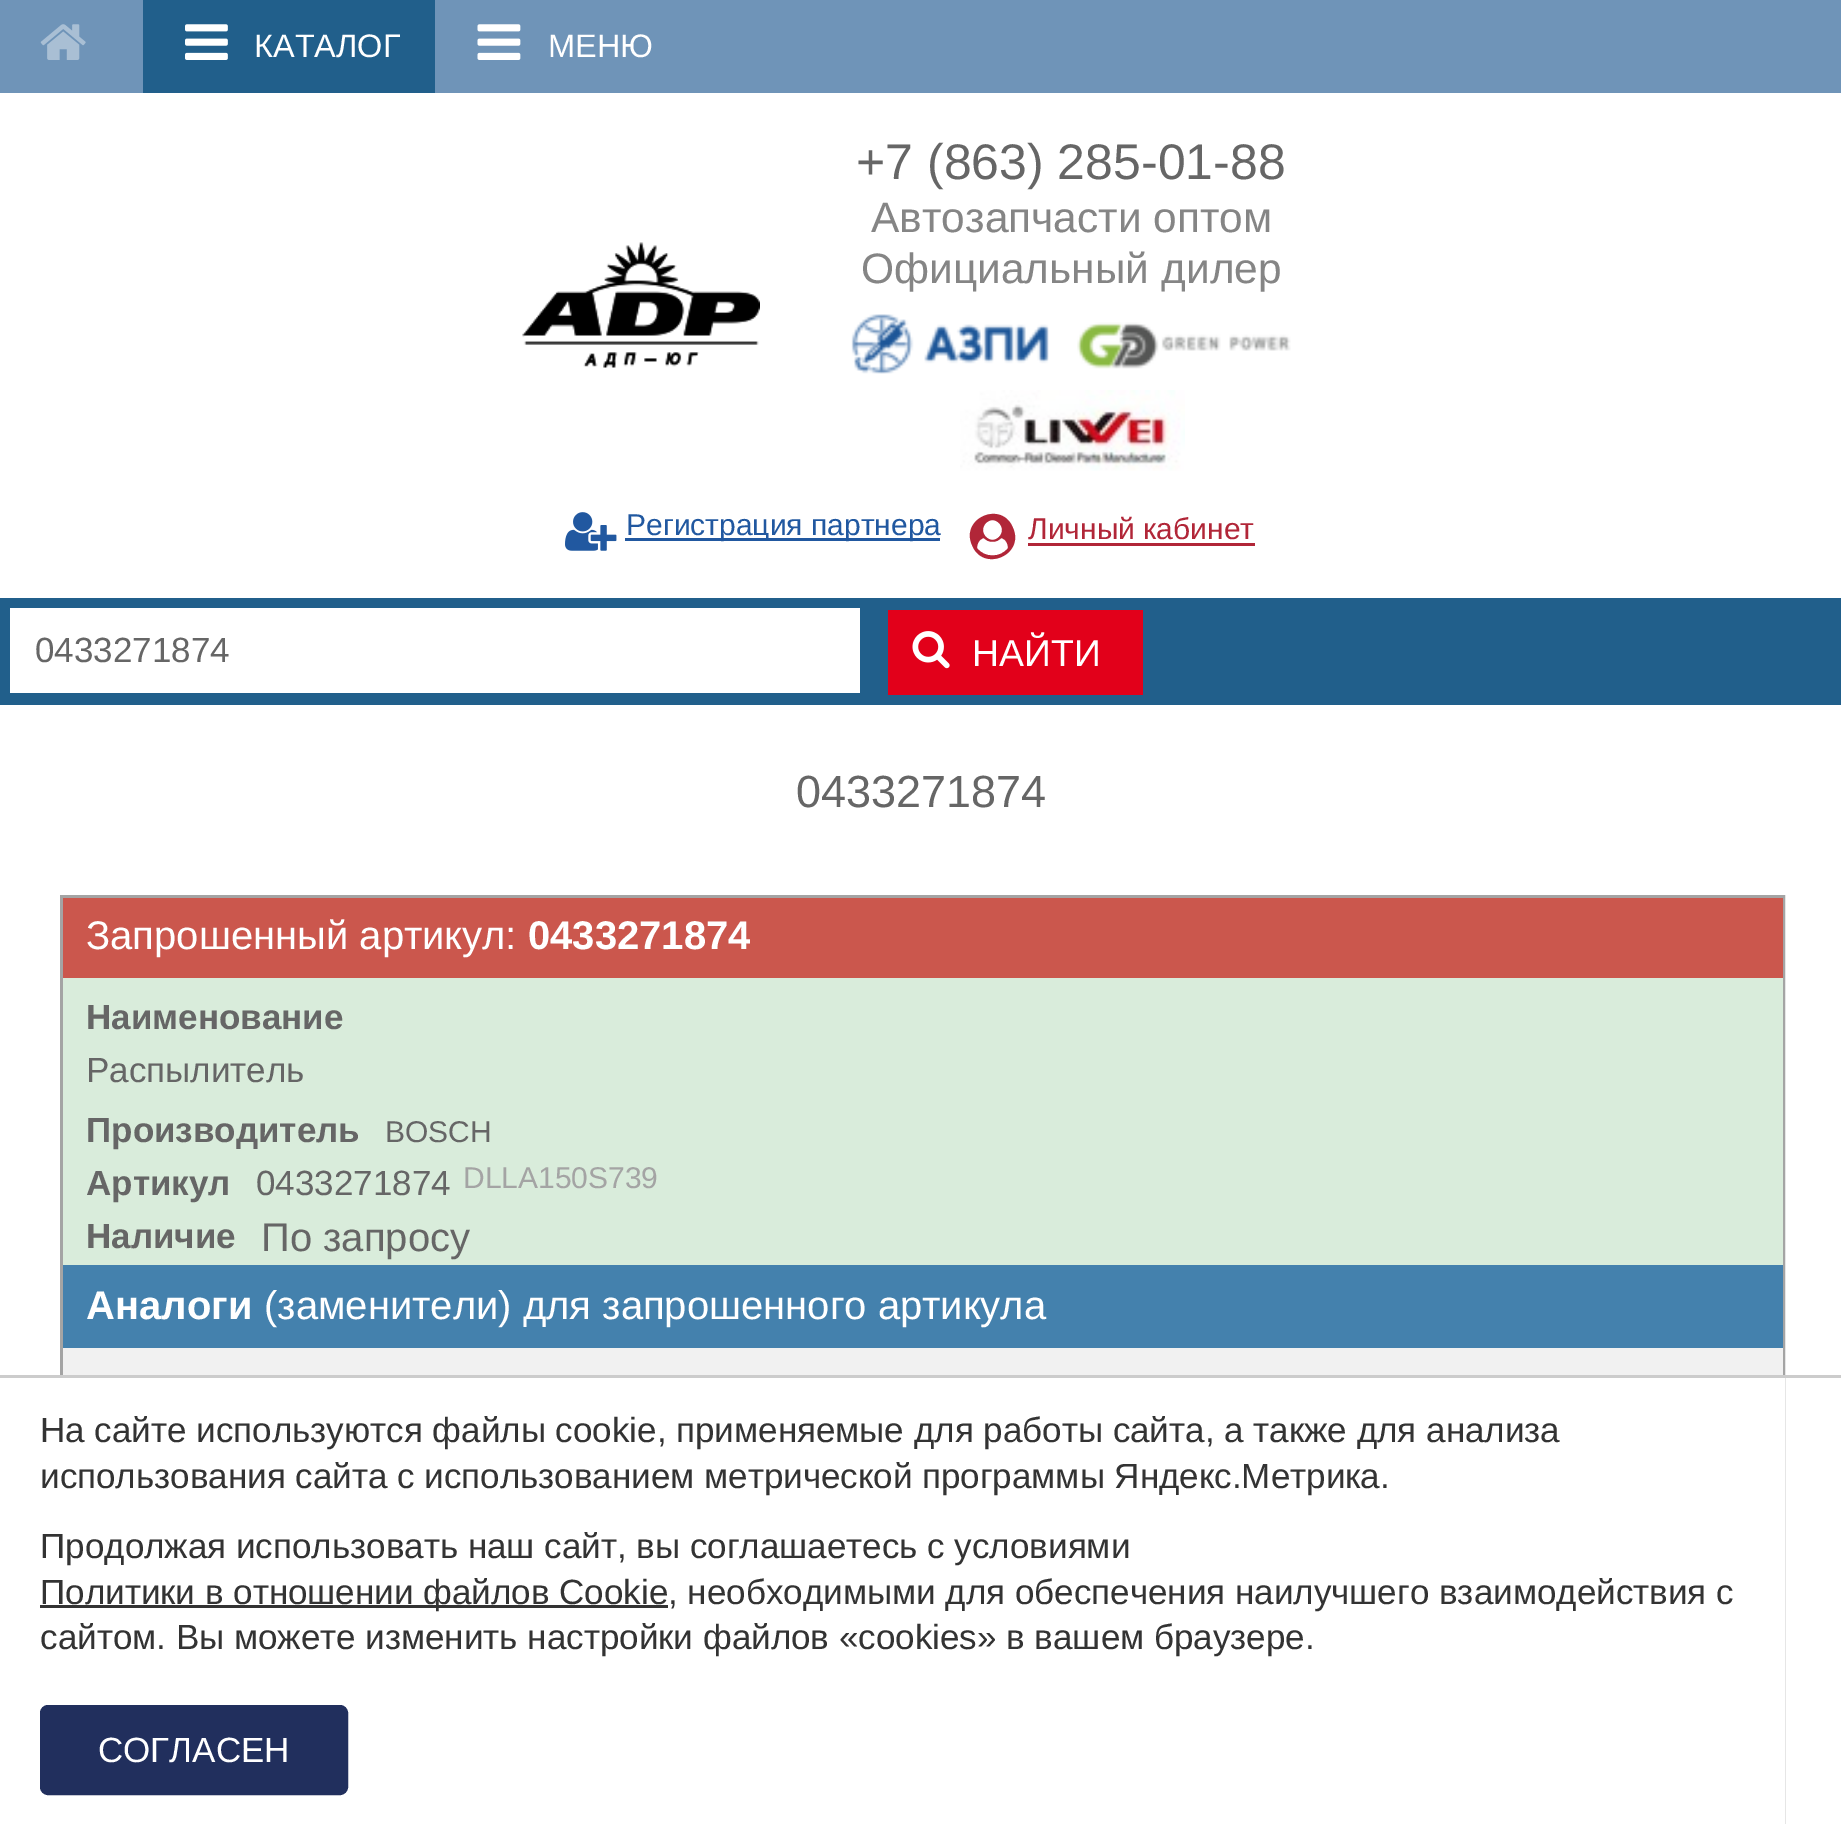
%!PS
<< /PageSize [1841 1824] >> setpagedevice
/rgb { dup -16 bitshift 255 div exch dup -8 bitshift 255 and 255 div exch 255 and 255 div setrgbcolor } def
/font { [ exch dup neg 0 0 3 -1 roll 0 0 ] selectfont } def
/text { moveto show } def
/roundrect { 5 dict begin { /r /h /w /y /x } { exch def } forall
  x r add y moveto x w add y 2 copy h add r arct x w add y h add x 1 index r arct
  x y h add x y r arct x y 2 copy exch w add exch r arct closepath end } def
/picture { 5 dict begin { /h /w /y /x /name } { exch def } forall
  gsave x y translate w h scale
  w h 8 [w 0 0 h 0 0] name (r) file false 3 colorimage grestore end } def
0 1824 translate 1 -1 scale
4 setmiterlimit
/s1 { /LiberationSans-Regular 32.5 font 16#FFFFFF rgb } def
/s2 { /LiberationSans-Regular 50 font 16#666666 rgb } def
/s3 { /LiberationSans-Regular 42.5 font 16#858585 rgb } def
/s4 { /LiberationSans-Regular 30 font 16#2158A0 rgb } def
/s5 { /LiberationSans-Regular 30 font 16#B12638 rgb } def
/s6 { /LiberationSans-Regular 35 font 16#666666 rgb } def
/s7 { /LiberationSans-Regular 37.5 font 16#FFFFFF rgb } def
/s8 { /LiberationSans-Regular 45 font 16#666666 rgb } def
/s9 { /LiberationSans-Regular 40 font 16#FFFFFF rgb } def
/s10 { /LiberationSans-Bold 40 font 16#FFFFFF rgb } def
/s11 { /LiberationSans-Bold 35 font 16#666666 rgb } def
/s12 { /LiberationSans-Regular 30 font 16#666666 rgb } def
/s13 { /LiberationSans-Regular 30 font 16#A4A4A4 rgb } def
/s14 { /LiberationSans-Regular 40 font 16#666666 rgb } def
/s15 { /LiberationSans-Regular 35 font 16#333333 rgb } def
/s16 { /LiberationSans-Regular 35 font 16#FFFFFF rgb } def
16#FFFFFF rgb
0 0 1841 1824 rectfill
16#6F94B8 rgb
0 0 1841 93 rectfill
(pic1.raw) 40 24 46 36 picture
16#215F8B rgb
143 0 292 93 rectfill
(pic2.raw) 185 24 43 36 picture
s1
(КАТАЛОГ) 254 57 text
(pic3.raw) 477 24 44 36 picture
(МЕНЮ) 548 57 text
s2
(+7 \(863\) 285-01-88) 856 179 text
s3
(Автозапчасти оптом) 871 232 text
(Официальный дилер) 861 283 text
(pic4.raw) 851 314 198 60 picture
(pic5.raw) 1077 322 214 47 picture
(pic6.raw) 960 390 225 81 picture
(pic7.raw) 522 242 238 126 picture
(pic8.raw) 565 512 52 39 picture
16#2158A0 rgb
625 538 315 3 rectfill
s4
(Регистрация партнера) 626 535 text
16#B12638 rgb
1008 548 moveto 1008 544 1006 539 1001 538 curveto 997 543 988 543 984 538 curveto 979 539 977 544 977 548 curveto 984 558 1001 558 1008 548 curveto closepath 999 537 moveto 1008 528 995 514 986 523 curveto 977 532 990 546 999 537 curveto closepath 1013 528 moveto 1025 555 983 573 972 545 curveto 960 518 1002 500 1013 528 curveto closepath fill
(Личный кабинет) 1028 539 text
1028 543 227 3 rectfill
16#215F8B rgb
0 598 1841 107 rectfill
16#FFFFFF rgb
10 608 850 85 rectfill
s6
(0433271874) 35 662 text
16#E2001A rgb
888 610 255 85 rectfill
(pic9.raw) 912 631 38 38 picture
s7
(НАЙТИ) 972 666 text
s8
(0433271874) 796 807 text
16#A4A4A4 rgb
3 setlinewidth
61.5 896.5 1722 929 rectstroke
16#CB574D rgb
63 898 1720 80 rectfill
s9
(Запрошенный артикул:) 86 949 text
s10
(0433271874) 528 949 text
16#D9ECDB rgb
63 978 1720 287 rectfill
s11
(Наименование) 86 1029 text
s6
(Распылитель) 86 1082 text
s11
(Производитель) 86 1142 text
s12
(BOSCH) 385 1142 text
s11
(Артикул) 86 1195 text
s6
(0433271874) 256 1195 text
s13
(DLLA150S739) 463 1188 text
s11
(Наличие) 86 1248 text
s14
(По запросу) 261 1251 text
16#4481AD rgb
63 1265 1720 83 rectfill
s10
(Аналоги) 86 1319 text
s9
(\(заменители\) для запрошенного артикула) 264 1319 text
16#F1F1F1 rgb
63 1348 1720 27 rectfill
16#FFFFFF rgb
60 1378 1725 446 rectfill
16#CCCCCC rgb
0 1375 1841 3 rectfill
s15
(На сайте используются файлы cookie, применяемые для работы сайта, а также для анализа) 40 1442 text
(использования сайта с использованием метрической программы Яндекс.Метрика.) 40 1488 text
(Продолжая использовать наш сайт, вы соглашаетесь с условиями) 40 1558 text
40 1605 628 3 rectfill
(Политики в отношении файлов Cookie, необходимыми для обеспечения наилучшего взаимодействия с) 40 1604 text
(сайтом. Вы можете изменить настройки файлов «cookies» в вашем браузере.) 40 1649 text
16#212F5D rgb
41.5 1706.5 305 87 6.5 roundrect gsave fill grestore
stroke
s16
(СОГЛАСЕН) 98 1762 text
showpage
